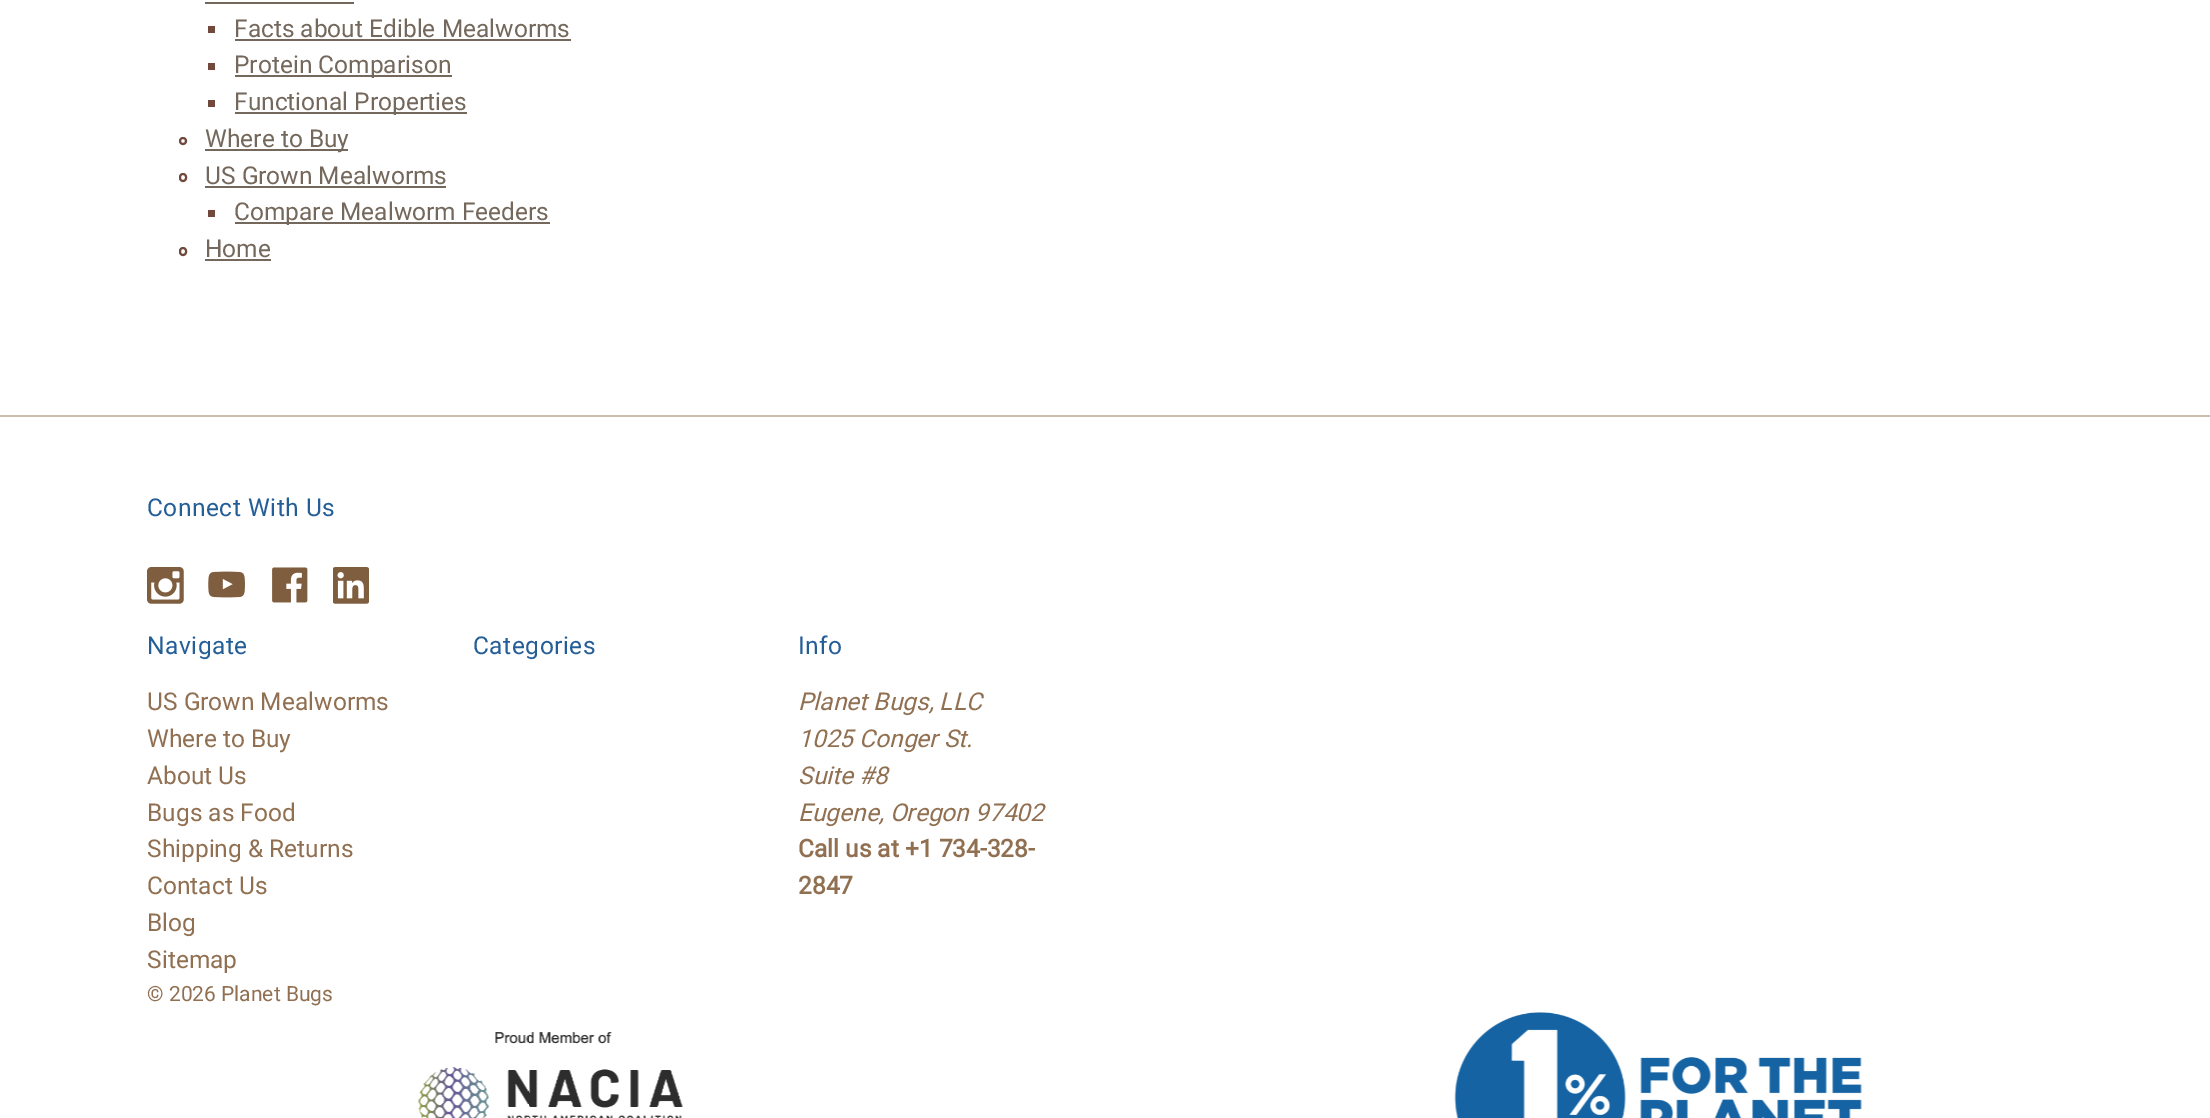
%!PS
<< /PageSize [2210 1118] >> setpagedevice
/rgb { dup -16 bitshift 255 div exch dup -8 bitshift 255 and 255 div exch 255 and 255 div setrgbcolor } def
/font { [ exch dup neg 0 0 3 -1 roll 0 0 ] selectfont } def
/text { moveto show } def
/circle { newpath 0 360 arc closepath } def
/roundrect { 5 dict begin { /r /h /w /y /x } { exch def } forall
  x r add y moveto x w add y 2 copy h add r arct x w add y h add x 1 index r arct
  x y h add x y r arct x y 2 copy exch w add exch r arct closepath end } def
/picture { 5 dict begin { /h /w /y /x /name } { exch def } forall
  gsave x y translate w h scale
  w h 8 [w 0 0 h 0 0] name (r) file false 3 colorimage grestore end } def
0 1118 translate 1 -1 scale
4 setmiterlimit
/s1 { /Roboto-Regular 24.5 font 16#74685C rgb } def
/s2 { /Roboto-Regular 24.5 font 16#917052 rgb } def
/s3 { /Roboto-Italic 24.5 font 16#917052 rgb } def
/s4 { /Roboto-Bold 24.5 font 16#917052 rgb } def
/s5 { /Roboto-Regular 21 font 16#917052 rgb } def
16#FFFFFF rgb
0 0 2210 1118 rectfill
16#74685C rgb
205 2 149 2 rectfill
16#70483C rgb
208 26 7 7 rectfill
s1
(Facts about Edible Mealworms) 234 37 text
235 39 336 2 rectfill
16#70483C rgb
208 63 7 7 rectfill
16#74685C rgb
235 75 217 2 rectfill
(Protein Comparison) 234 73 text
16#70483C rgb
208 100 7 7 rectfill
16#74685C rgb
235 112 232 2 rectfill
(Functional Properties) 234 110 text
16#70483C rgb
2 setlinewidth
183 141 3 circle stroke
16#74685C rgb
205 149 143 2 rectfill
(Where to Buy) 205 147 text
16#70483C rgb
180 174 6 7 3 roundrect stroke
s1
(US Grown Mealworms) 205 184 text
205 186 241 2 rectfill
16#70483C rgb
208 210 7 7 rectfill
16#74685C rgb
235 222 315 2 rectfill
(Compare Mealworm Feeders) 234 220 text
16#70483C rgb
180 248 6 7 3 roundrect stroke
s1
(Home) 205 257 text
205 259 66 2 rectfill
16#CCBDAE rgb
0 415 2210 2 rectfill
16#245E97 rgb
147 516 moveto 0.5 0 (Connect With Us) ashow
(pic1.raw) 147 567 37 37 picture
(pic2.raw) 208 571 37 27 picture
(pic3.raw) 272 567 36 36 picture
(pic4.raw) 333 567 36 37 picture
147 654 moveto 0.5 0 (Navigate) ashow
s2
(US Grown Mealworms) 147 710 text
(Where to Buy) 147 747 text
(About Us) 147 784 text
(Bugs as Food) 147 821 text
(Shipping & Returns) 147 857 text
(Contact Us) 147 894 text
(Blog) 147 931 text
(Sitemap) 147 968 text
16#245E97 rgb
473 654 moveto 0.5 0 (Categories) ashow
798 654 moveto 0.5 0 (Info) ashow
s3
(Planet Bugs, LLC) 798 710 text
(1025 Conger St.) 798 747 text
(Suite #8) 798 784 text
(Eugene, Oregon 97402) 798 821 text
s4
(Call us at +1 734-328-) 798 857 text
(2847) 798 894 text
s5
(© 2026 Planet Bugs) 147 1001 text
(pic5.raw) 418 1032 265 86 picture
(pic6.raw) 1454 1012 408 106 picture
showpage
